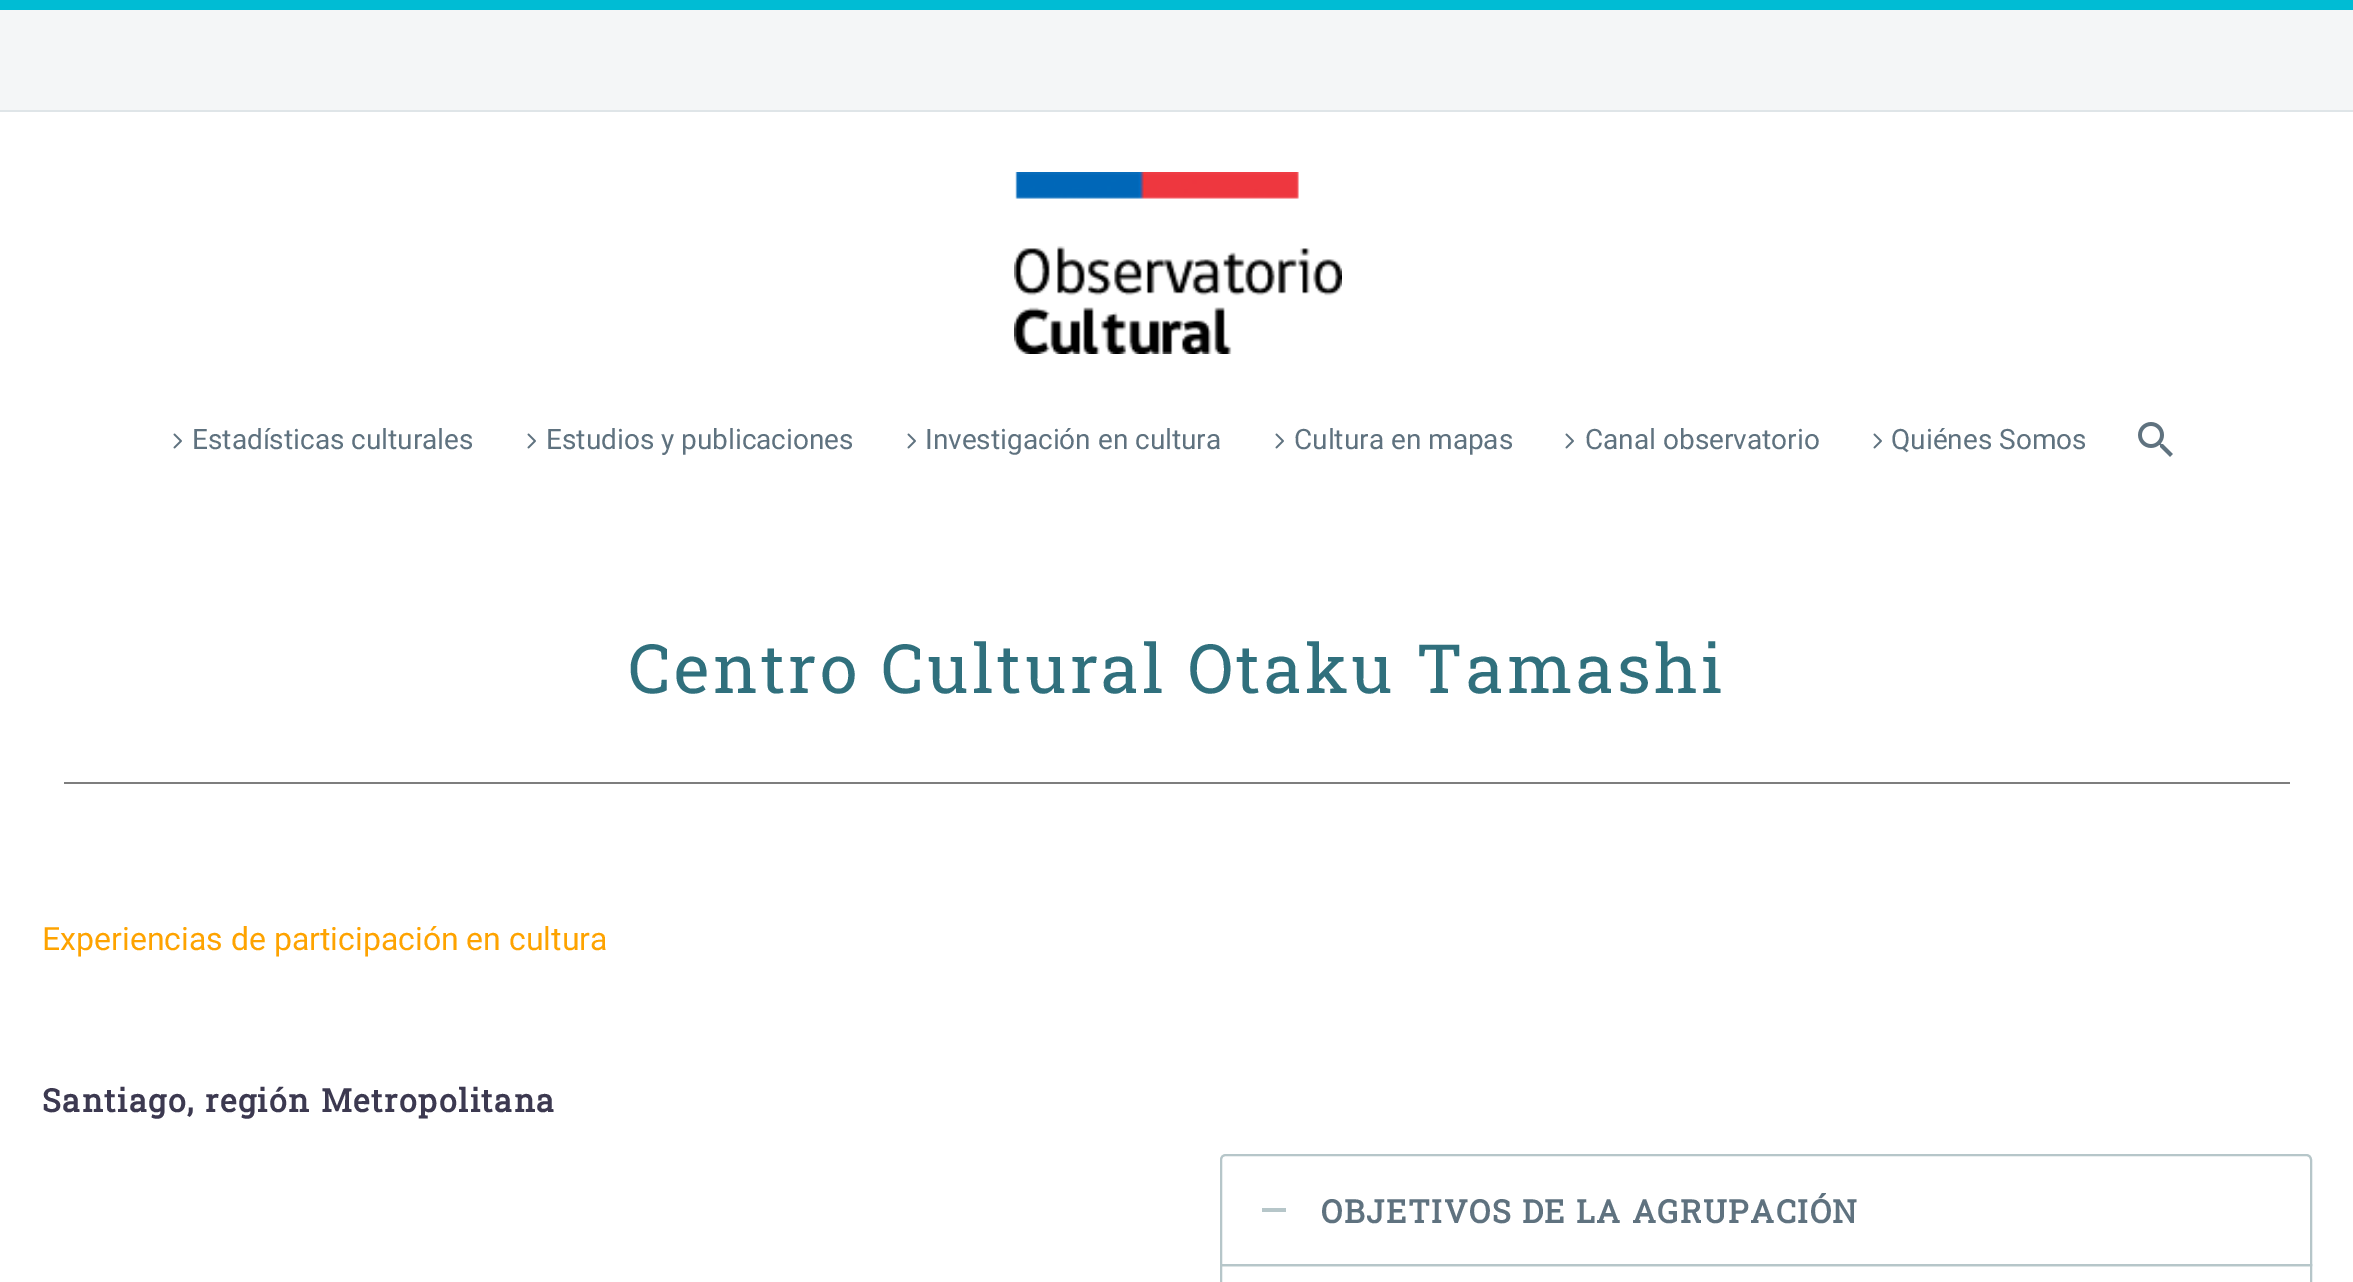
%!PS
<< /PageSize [2353 1282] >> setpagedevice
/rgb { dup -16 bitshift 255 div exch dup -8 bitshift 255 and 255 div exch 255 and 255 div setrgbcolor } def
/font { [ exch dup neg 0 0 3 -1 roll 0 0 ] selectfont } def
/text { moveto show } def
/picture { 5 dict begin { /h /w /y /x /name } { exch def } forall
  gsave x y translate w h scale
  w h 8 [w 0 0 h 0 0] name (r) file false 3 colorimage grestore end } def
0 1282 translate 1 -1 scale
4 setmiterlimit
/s1 { /Roboto-Regular 28 font 16#5F727F rgb } def
/s2 { /Roboto-Regular 32 font 16#FEA300 rgb } def
16#FFFFFF rgb
0 0 2353 1282 rectfill
16#F4F6F7 rgb
0 10 2353 100 rectfill
16#00BCD4 rgb
0 0 2353 10 rectfill
16#DFE5E8 rgb
0 110 2353 2 rectfill
(pic1.raw) 1014 172 328 182 picture
(pic2.raw) 173 433 9 16 picture
s1
(Estadísticas culturales) 192 449 text
(pic2.raw) 527 433 9 16 picture
(Estudios y publicaciones) 546 449 text
(pic2.raw) 907 433 9 16 picture
(Investigación en cultura) 925 449 text
(pic2.raw) 1275 433 9 16 picture
(Cultura en mapas) 1294 449 text
(pic2.raw) 1565 433 9 16 picture
(Canal observatorio) 1585 449 text
(pic2.raw) 1873 433 9 16 picture
(Quiénes Somos) 1891 449 text
(pic3.raw) 2138 422 35 35 picture
/RobotoSlab-Regular 68 font
16#30707D rgb
628 693 moveto 3.4 0 (Centro Cultural Otaku Tamashi) ashow
16#7E7E7E rgb
64 782 2226 2 rectfill
s2
(Experiencias de participación en cultura) 42 950 text
/RobotoSlab-Bold 32 font
16#3C3950 rgb
42 1112 moveto 1.6 0 (Santiago, región Metropolitana) ashow
16#B6C6C9 rgb
2 setlinewidth
1226 1155 moveto 2306 1155 lineto 2309 1155 2311 1157 2311 1160 curveto 2311 1265 lineto 1221 1265 lineto 1221 1160 lineto 1221 1157 1223 1155 1226 1155 curveto closepath stroke
1262 1208 24 4 rectfill
16#5F727F rgb
1321 1223 moveto 1.6 0 (OBJETIVOS DE LA AGRUPACIÓN) ashow
16#B6C6C9 rgb
1221 1265 1090 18 rectstroke
showpage
